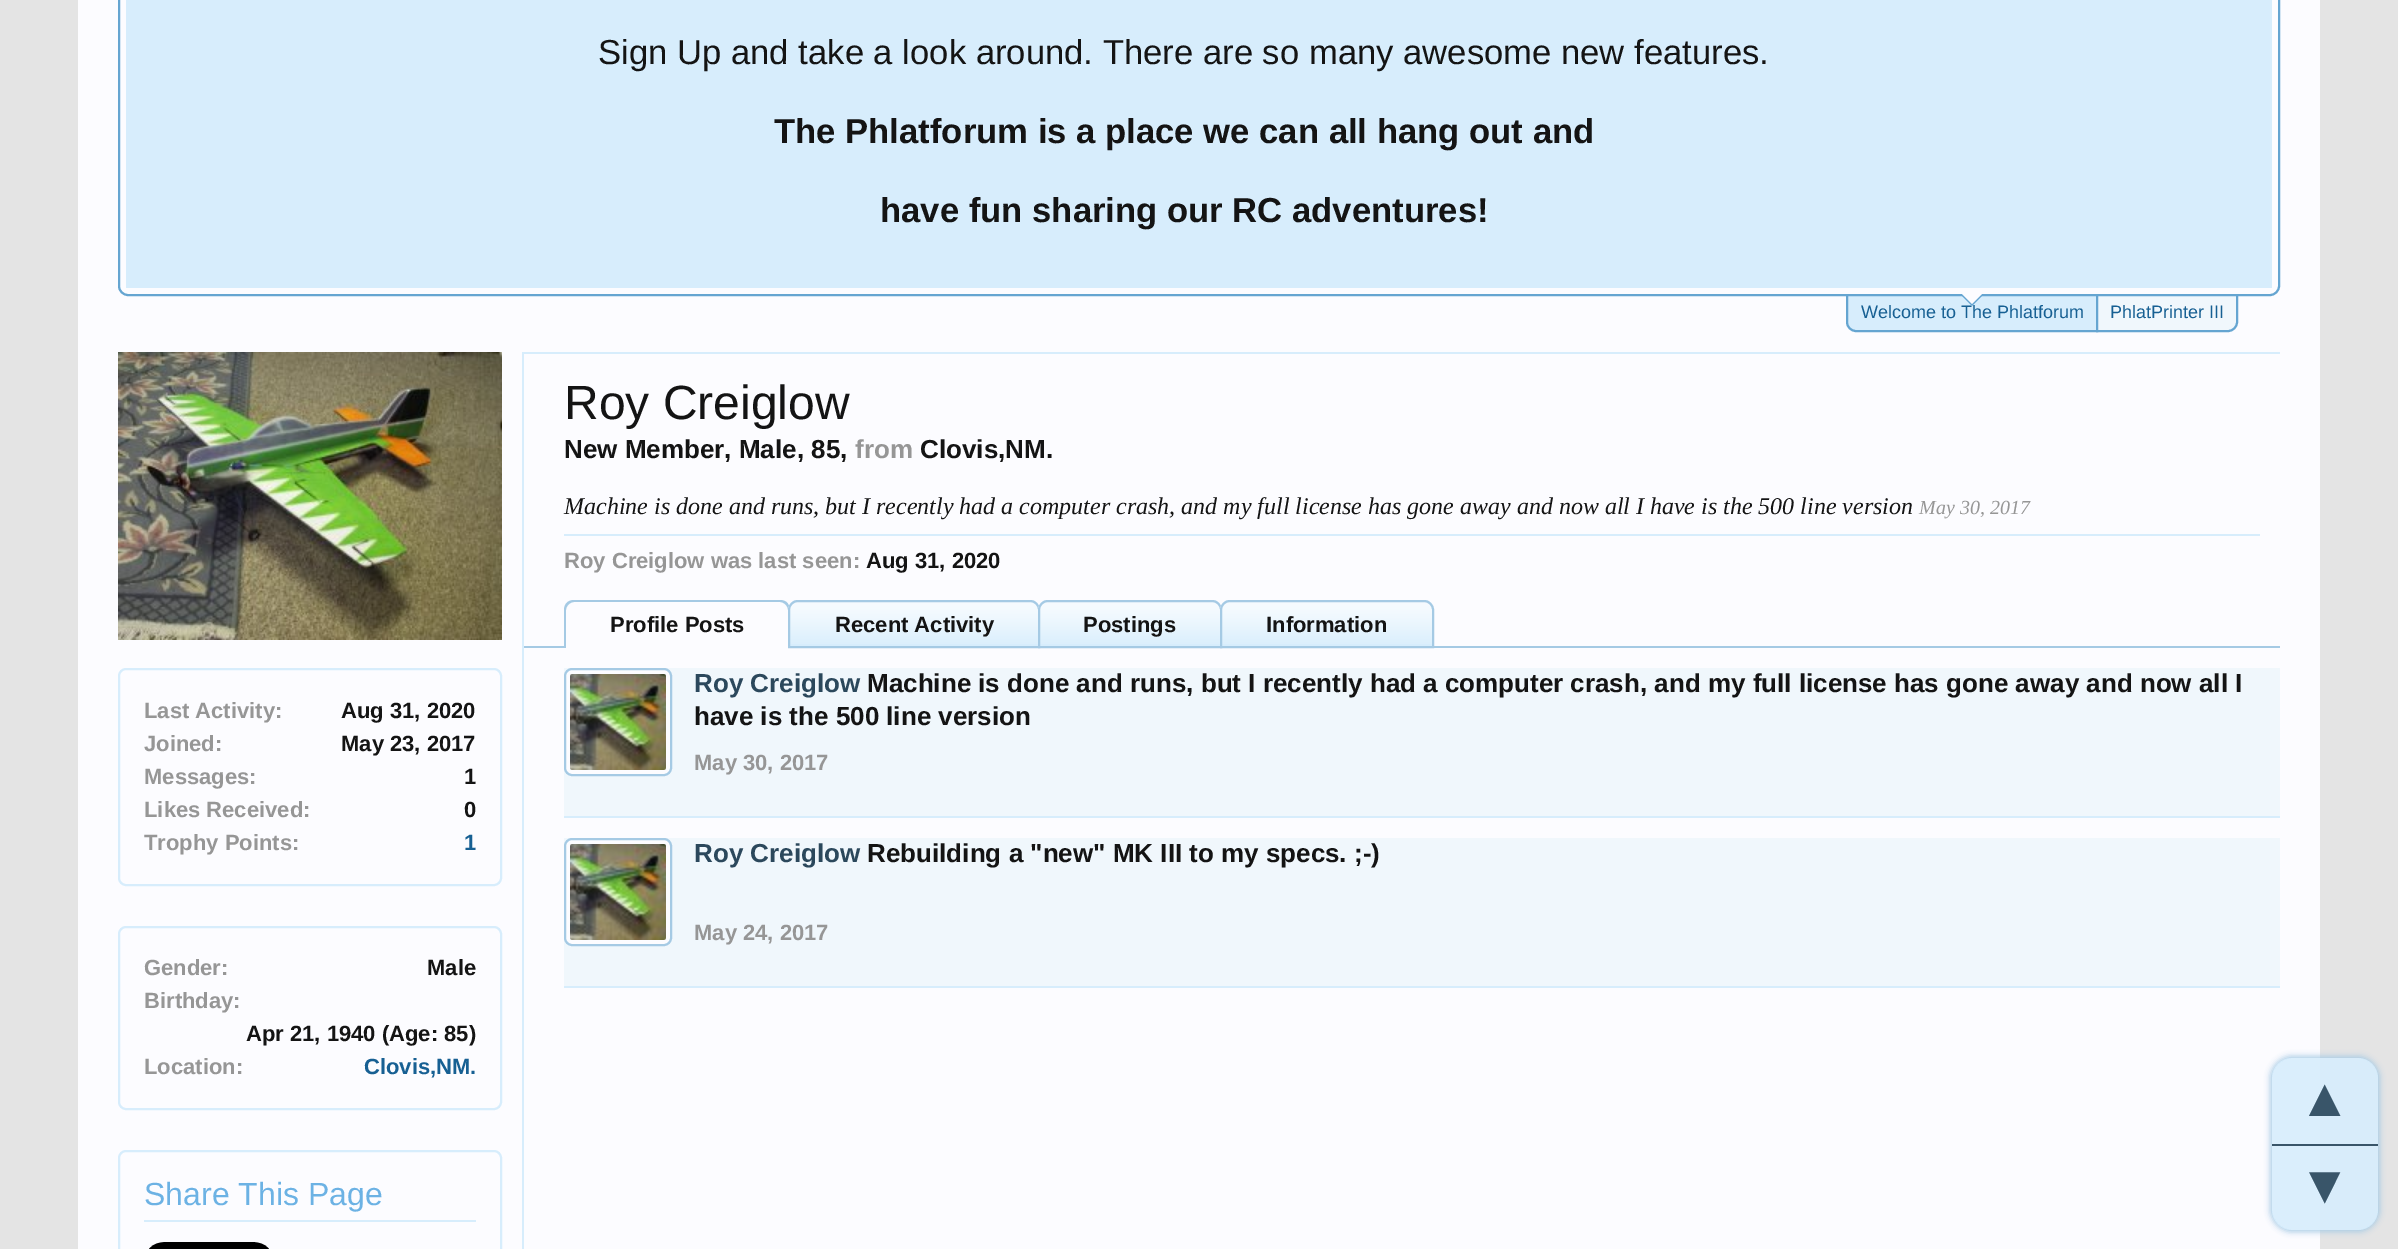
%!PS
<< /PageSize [2398 1249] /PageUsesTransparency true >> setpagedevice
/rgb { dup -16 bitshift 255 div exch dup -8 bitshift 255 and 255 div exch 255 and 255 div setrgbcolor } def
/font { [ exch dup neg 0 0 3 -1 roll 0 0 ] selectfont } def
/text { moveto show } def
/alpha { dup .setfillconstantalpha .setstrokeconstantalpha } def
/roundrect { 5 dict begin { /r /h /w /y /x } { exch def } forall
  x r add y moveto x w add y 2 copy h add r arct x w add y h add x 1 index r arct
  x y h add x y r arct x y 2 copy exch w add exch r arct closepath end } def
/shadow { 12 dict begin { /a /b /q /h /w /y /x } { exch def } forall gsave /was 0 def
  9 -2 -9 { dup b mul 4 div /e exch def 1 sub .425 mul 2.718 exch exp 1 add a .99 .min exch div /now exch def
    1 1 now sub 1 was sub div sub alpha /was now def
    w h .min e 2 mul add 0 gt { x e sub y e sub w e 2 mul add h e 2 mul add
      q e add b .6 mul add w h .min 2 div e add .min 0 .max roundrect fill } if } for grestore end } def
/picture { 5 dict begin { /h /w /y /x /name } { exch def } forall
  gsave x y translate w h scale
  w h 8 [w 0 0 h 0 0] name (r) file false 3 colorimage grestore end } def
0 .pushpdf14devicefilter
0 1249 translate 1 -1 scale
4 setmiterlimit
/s1 { /LiberationSans-Regular 34.65 font 16#141414 rgb } def
/s2 { /LiberationSans-Bold 34.65 font 16#141414 rgb } def
/s3 { /LiberationSans-Regular 18 font 16#176093 rgb } def
/s4 { /LiberationSans-Bold 22 font 16#969696 rgb } def
/s5 { /LiberationSans-Bold 22 font 16#141414 rgb } def
/s6 { /LiberationSans-Bold 22 font 16#176093 rgb } def
/s7 { /LiberationSans-Regular 32 font 16#6CB2E4 rgb } def
/s8 { /LiberationSans-Regular 48 font 16#141414 rgb } def
/s9 { /LiberationSans-Bold 26 font 16#141414 rgb } def
/s10 { /LiberationSans-Bold 26 font 16#969696 rgb } def
/s11 { /LiberationSerif-Italic 24 font 16#141414 rgb } def
/s12 { /LiberationSerif-Italic 20 font 16#969696 rgb } def
/s13 { /LiberationSans-Bold 26 font 16#2B485C rgb } def
/s14 { /LiberationSans-Regular 54 font 16#395569 rgb } def
16#E4E4E4 rgb
0 0 2398 1249 rectfill
16#FCFCFF rgb
78 0 2242 1249 rectfill
16#65A5D1 rgb
2 setlinewidth
119 -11 2160 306 9 roundrect stroke
16#D7EDFC rgb
126 0 2146 288 rectfill
s1
(Sign Up and take a look around. There are so many awesome new features.) 598 64 text
s2
(The Phlatforum is a place we can all hang out and) 774 143 text
(have fun sharing our RC adventures!) 880 222 text
16#D7EDFC rgb
1847 295 moveto 2097 295 lineto 2097 331 lineto 1856 331 lineto 1851 331 1847 327 1847 322 curveto closepath gsave fill grestore
16#65A5D1 rgb
stroke
s3
(Welcome to The Phlatforum) 1861 318 text
16#65A5D1 rgb
1962 296 moveto 1982 296 lineto 1972 306 lineto closepath fill
16#FCFCFF rgb
1962 294 moveto 1982 294 lineto 1972 304 lineto closepath fill
16#F0F7FC rgb
2097 295 moveto 2237 295 lineto 2237 322 lineto 2237 327 2233 331 2228 331 curveto 2097 331 lineto closepath gsave fill grestore
16#65A5D1 rgb
stroke
s3
(PhlatPrinter III) 2110 318 text
16#D7EDFC rgb
522 352 2 897 rectfill
(pic1.raw) 118 352 384 288 picture
119 669 382 216 7 roundrect stroke
s4
(Last Activity:) 144 718 text
s5
(Aug 31, 2020) 341 718 text
s4
(Joined:) 144 751 text
s5
(May 23, 2017) 341 751 text
s4
(Messages:) 144 784 text
s5
(1) 464 784 text
s4
(Likes Received:) 144 817 text
s5
(0) 464 817 text
s4
(Trophy Points:) 144 850 text
s6
(1) 464 850 text
16#D7EDFC rgb
119 927 382 182 7 roundrect stroke
s4
(Gender:) 144 975 text
s5
(Male) 427 975 text
s4
(Birthday:) 144 1008 text
s5
(Apr 21, 1940 \(Age: 85\)) 246 1041 text
s4
(Location:) 144 1074 text
s6
(Clovis,NM.) 364 1074 text
16#D7EDFC rgb
119 1151 382 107 7 roundrect stroke
144 1220 332 2 rectfill
s7
(Share This Page) 144 1205 text
(pic2.raw) 149 1242 120 7 picture
16#D7EDFC rgb
524 352 1756 2 rectfill
s8
(Roy Creiglow) 564 419 text
s9
(New Member, Male, 85,) 564 458 text
s10
(from) 855 458 text
s9
(Clovis,NM.) 920 458 text
s11
(Machine is done and runs, but I recently had a computer crash, and my full license has gone away and now all I have is the 500 line version) 564 514 text
s12
(May 30, 2017) 1919 514 text
16#D7EDFC rgb
564 534 1696 2 rectfill
s4
(Roy Creiglow was last seen:) 564 568 text
s5
(Aug 31, 2020) 866 568 text
16#A5CAE4 rgb
524 646 1756 2 rectfill
16#FCFCFF rgb
574 600 moveto 780 600 lineto 785.5 600 790 604.5 790 610 curveto 790 648 lineto 564 648 lineto 564 610 lineto 564 604.5 568.5 600 574 600 curveto closepath fill
16#A5CAE4 rgb
574 600 moveto 780 600 lineto 786 600 790 604 790 610 curveto 790 648 lineto 564 648 lineto 564 610 lineto 564 604 568 600 574 600 curveto closepath 574 602 moveto 780 602 lineto 784 602 788 606 788 610 curveto 788 648 lineto 566 648 lineto 566 610 lineto 566 606 570 602 574 602 curveto closepath eofill
s5
(Profile Posts) 610 632 text
16#D7EDFC rgb
798 600 moveto 1030 600 lineto 1035.5 600 1040 604.5 1040 610 curveto 1040 648 lineto 788 648 lineto 788 610 lineto 788 604.5 792.5 600 798 600 curveto closepath fill
(pic3.raw) 788 602 251 42 picture
16#A5CAE4 rgb
798 601 moveto 1030 601 lineto 1035 601 1039 605 1039 610 curveto 1039 647 lineto 789 647 lineto 789 610 lineto 789 605 793 601 798 601 curveto closepath stroke
s5
(Recent Activity) 835 632 text
16#D7EDFC rgb
1048 600 moveto 1212 600 lineto 1217.5 600 1222 604.5 1222 610 curveto 1222 648 lineto 1038 648 lineto 1038 610 lineto 1038 604.5 1042.5 600 1048 600 curveto closepath fill
(pic4.raw) 1038 602 183 42 picture
16#A5CAE4 rgb
1048 601 moveto 1212 601 lineto 1217 601 1221 605 1221 610 curveto 1221 647 lineto 1039 647 lineto 1039 610 lineto 1039 605 1043 601 1048 601 curveto closepath stroke
s5
(Postings) 1083 632 text
16#D7EDFC rgb
1230 600 moveto 1424 600 lineto 1429.5 600 1434 604.5 1434 610 curveto 1434 648 lineto 1220 648 lineto 1220 610 lineto 1220 604.5 1224.5 600 1230 600 curveto closepath fill
(pic5.raw) 1220 602 214 42 picture
16#A5CAE4 rgb
1230 601 moveto 1424 601 lineto 1429 601 1433 605 1433 610 curveto 1433 647 lineto 1221 647 lineto 1221 610 lineto 1221 605 1225 601 1230 601 curveto closepath stroke
s5
(Information) 1266 632 text
16#F0F7FC rgb
564 668 1716 148 rectfill
16#D7EDFC rgb
564 816 1716 2 rectfill
16#FCFCFF rgb
565 669 106 106 7 roundrect gsave fill grestore
16#A5CAE4 rgb
stroke
(pic6.raw) 570 674 96 96 picture
s13
(Roy Creiglow) 694 692 text
s9
(Machine is done and runs, but I recently had a computer crash, and my full license has gone away and now all I) 867 692 text
(have is the 500 line version) 694 725 text
s4
(May 30, 2017) 694 770 text
16#F0F7FC rgb
564 838 1716 148 rectfill
16#D7EDFC rgb
564 986 1716 2 rectfill
16#FCFCFF rgb
565 839 106 106 7 roundrect gsave fill grestore
16#A5CAE4 rgb
stroke
(pic6.raw) 570 844 96 96 picture
s13
(Roy Creiglow) 694 862 text
s9
(Rebuilding a "new" MK III to my specs. ;-\)) 867 862 text
s4
(May 24, 2017) 694 940 text
gsave
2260 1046 moveto 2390 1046 lineto 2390 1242 lineto 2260 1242 lineto closepath 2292 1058 moveto 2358 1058 lineto 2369 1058 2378 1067 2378 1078 curveto 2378 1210 lineto 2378 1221 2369 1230 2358 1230 curveto 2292 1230 lineto 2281 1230 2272 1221 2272 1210 curveto 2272 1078 lineto 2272 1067 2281 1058 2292 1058 curveto closepath eoclip newpath
16#A5CAE4 rgb
2270 1056 110 176 22 3 0.92 shadow
grestore
0.92 alpha
16#D7EDFC rgb
2272 1058 106 172 20 roundrect fill
1 alpha
16#395569 rgb
2272 1144 106 2 rectfill
s14
(▲) 2298 1116 text
(▼) 2298 1203 text
.poppdf14devicefilter showpage
